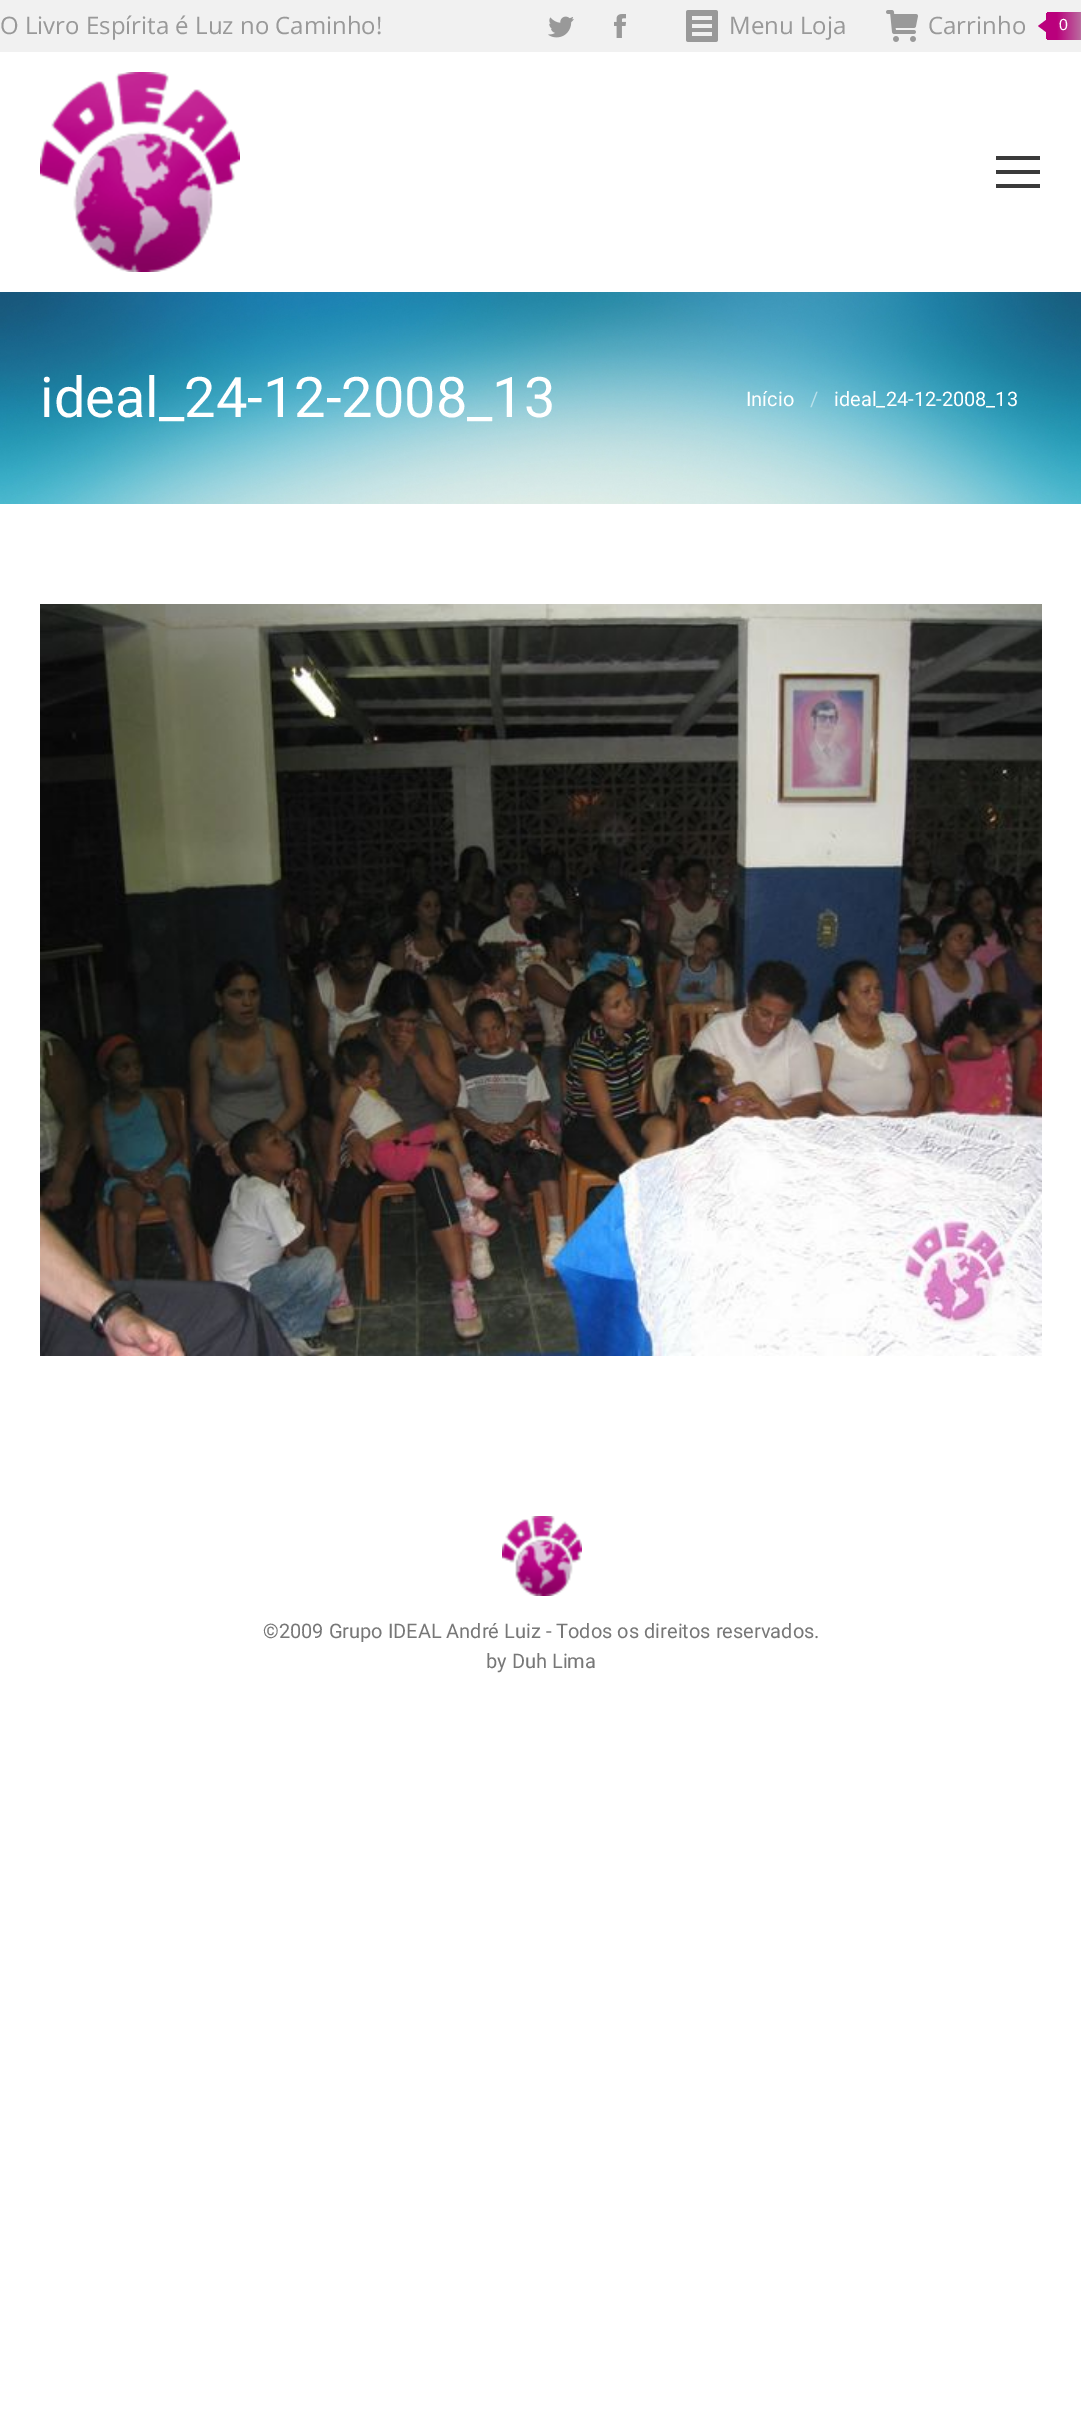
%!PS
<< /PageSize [1081 2414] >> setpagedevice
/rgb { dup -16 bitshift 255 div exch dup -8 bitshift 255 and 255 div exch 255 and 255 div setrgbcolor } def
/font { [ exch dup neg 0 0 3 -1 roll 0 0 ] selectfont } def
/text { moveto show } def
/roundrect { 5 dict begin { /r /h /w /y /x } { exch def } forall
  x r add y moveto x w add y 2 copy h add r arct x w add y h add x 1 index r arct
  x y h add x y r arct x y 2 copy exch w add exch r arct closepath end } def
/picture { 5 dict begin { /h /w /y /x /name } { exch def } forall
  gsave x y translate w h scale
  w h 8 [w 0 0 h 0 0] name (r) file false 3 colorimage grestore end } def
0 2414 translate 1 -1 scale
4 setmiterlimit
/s1 { /OpenSans-Regular 24 font 16#999999 rgb } def
/s2 { /LiberationSans-Regular 16 font 16#FFFFFF rgb } def
/s3 { /Roboto-Regular 56 font 16#FFFFFF rgb } def
/s4 { /Roboto-Regular 20 font 16#FFFFFF rgb } def
/s5 { /Roboto-Regular 20 font 16#B9E0EA rgb } def
/s6 { /Roboto-Regular 20 font 16#777777 rgb } def
16#FFFFFF rgb
0 0 1081 2414 rectfill
16#F1F1F1 rgb
0 0 1081 52 rectfill
s1
(O Livro Espírita é Luz no Caminho!) 0 34 text
(pic1.raw) 548 16 26 22 picture
(pic2.raw) 614 14 12 24 picture
(pic3.raw) 686 10 32 32 picture
(Menu Loja) 729 34 text
(pic4.raw) 886 10 32 32 picture
(Carrinho) 928 34 text
gsave 1046 12 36 28 4 roundrect clip newpath
<< /ShadingType 2 /ColorSpace /DeviceRGB /Coords [1046 26 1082 26] /Extend [true true] /Function << /FunctionType 3 /Domain [0 1] /Functions [<< /FunctionType 2 /Domain [0 1] /C0 [0.729 0 0.486] /C1 [0.729 0 0.486] /N 1 >> << /FunctionType 2 /Domain [0 1] /C0 [0.729 0 0.486] /C1 [0.729 0.443 0.631] /N 1 >>] /Bounds [0.3] /Encode [0 1 0 1] >> >> shfill grestore
16#BA007C rgb
1046 20 moveto 1046 32 lineto 1038 26 lineto closepath fill
s2
(0) 1059 30 text
(pic5.raw) 40 72 200 200 picture
16#3A3A3A rgb
996 156 44 4 rectfill
996 170 44 4 rectfill
996 184 44 4 rectfill
(pic6.raw) 0 292 1081 212 picture
s3
(ideal_24-12-2008_13) 40 417 text
s4
(Início) 746 406 text
s5
(/) 810 406 text
s4
(ideal_24-12-2008_13) 834 406 text
(pic7.raw) 40 604 1002 752 picture
(pic8.raw) 502 1516 80 80 picture
s6
(©2009 Grupo IDEAL André Luiz - Todos os direitos reservados.) 263 1638 text
(by Duh Lima) 486 1668 text
showpage
